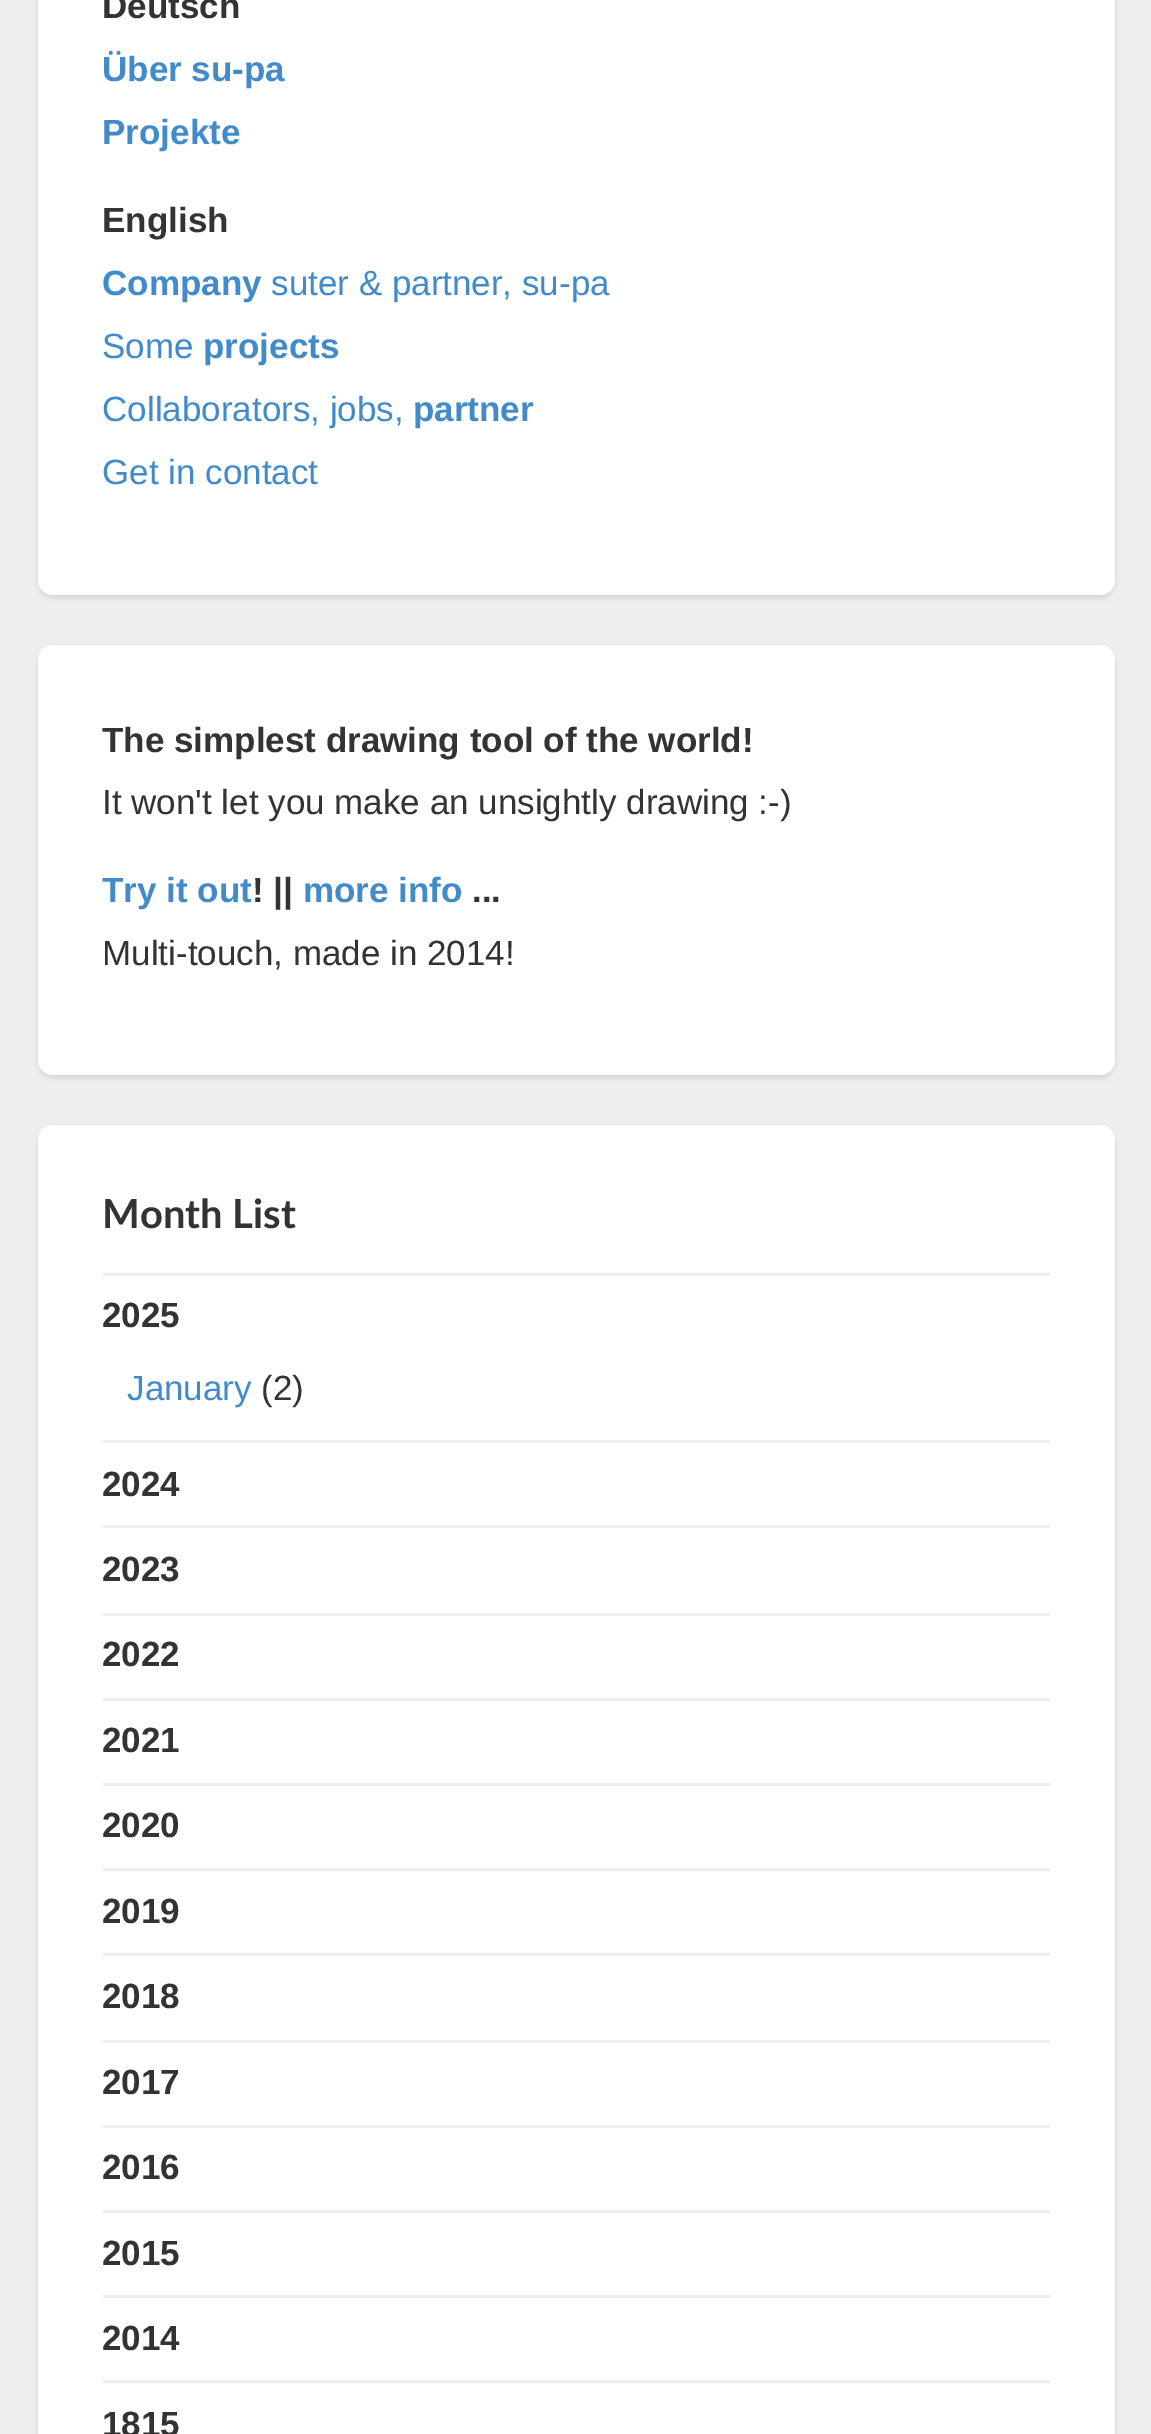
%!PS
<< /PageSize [1151 2434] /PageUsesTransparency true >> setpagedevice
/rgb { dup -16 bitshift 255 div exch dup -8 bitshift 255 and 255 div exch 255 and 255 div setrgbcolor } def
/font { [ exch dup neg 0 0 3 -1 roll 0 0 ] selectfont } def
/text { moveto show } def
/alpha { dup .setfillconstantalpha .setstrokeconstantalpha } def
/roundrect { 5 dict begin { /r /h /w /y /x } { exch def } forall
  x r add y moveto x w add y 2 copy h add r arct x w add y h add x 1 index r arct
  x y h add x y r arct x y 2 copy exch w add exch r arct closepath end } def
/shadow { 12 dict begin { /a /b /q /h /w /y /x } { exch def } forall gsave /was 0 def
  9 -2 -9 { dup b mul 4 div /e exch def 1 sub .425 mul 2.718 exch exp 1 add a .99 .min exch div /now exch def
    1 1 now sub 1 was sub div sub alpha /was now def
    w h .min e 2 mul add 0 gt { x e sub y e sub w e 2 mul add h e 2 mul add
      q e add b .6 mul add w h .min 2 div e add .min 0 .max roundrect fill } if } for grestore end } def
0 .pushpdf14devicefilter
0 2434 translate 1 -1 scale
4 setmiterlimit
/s1 { /LiberationSans-Bold 35 font 16#333333 rgb } def
/s2 { /LiberationSans-Bold 35 font 16#428BCA rgb } def
/s3 { /LiberationSans-Regular 35 font 16#428BCA rgb } def
/s4 { /LiberationSans-Regular 35 font 16#333333 rgb } def
/s5 { /Lato-Bold 40 font 16#333333 rgb } def
16#EEEEEE rgb
0 0 1151 2434 rectfill
16#000000 rgb
38 -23 1077 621 15 2.5 0.1 shadow
16#FFFFFF rgb
38 -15 1077 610 15 roundrect fill
s1
(Deutsch) 102 18 text
s2
(Über su-pa) 102 81 text
(Projekte) 102 144 text
s1
(English) 102 232 text
s2
(Company) 102 295 text
s3
(suter & partner, su-pa) 271 295 text
(Some) 102 358 text
s2
(projects) 203 358 text
s3
(Collaborators, jobs,) 102 421 text
s2
(partner) 413 421 text
s3
(Get in contact) 102 484 text
16#000000 rgb
38 648 1077 430 15 2.5 0.1 shadow
16#FFFFFF rgb
38 645 1077 430 15 roundrect fill
s1
(The simplest drawing tool of the world!) 102 752 text
s4
(It won't let you make an unsightly drawing :-\)) 102 814 text
s2
(Try it out) 102 902 text
s1
(! ||) 252 902 text
s2
(more info) 303 902 text
s1
(...) 472 902 text
s4
(Multi-touch, made in 2014!) 102 965 text
16#000000 rgb
38 1128 1077 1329 15 2.5 0.1 shadow
16#FFFFFF rgb
38 1125 1077 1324 15 roundrect fill
16#EEEEEE rgb
103 1273 947 3 rectfill
s5
(Month List) 102 1228 text
16#EEEEEE rgb
103 1440 947 3 rectfill
s1
(2025) 102 1327 text
s3
(January) 127 1400 text
s4
(\(2\)) 261 1400 text
16#EEEEEE rgb
103 1525 947 3 rectfill
s1
(2024) 102 1496 text
16#EEEEEE rgb
103 1613 947 3 rectfill
s1
(2023) 102 1581 text
16#EEEEEE rgb
103 1698 947 3 rectfill
s1
(2022) 102 1666 text
16#EEEEEE rgb
103 1783 947 3 rectfill
s1
(2021) 102 1752 text
16#EEEEEE rgb
103 1868 947 3 rectfill
s1
(2020) 102 1837 text
16#EEEEEE rgb
103 1953 947 3 rectfill
s1
(2019) 102 1923 text
16#EEEEEE rgb
103 2040 947 3 rectfill
s1
(2018) 102 2008 text
16#EEEEEE rgb
103 2125 947 3 rectfill
s1
(2017) 102 2094 text
16#EEEEEE rgb
103 2210 947 3 rectfill
s1
(2016) 102 2179 text
16#EEEEEE rgb
103 2295 947 3 rectfill
s1
(2015) 102 2265 text
16#EEEEEE rgb
103 2380 947 3 rectfill
s1
(2014) 102 2350 text
(1815) 102 2436 text
.poppdf14devicefilter showpage
